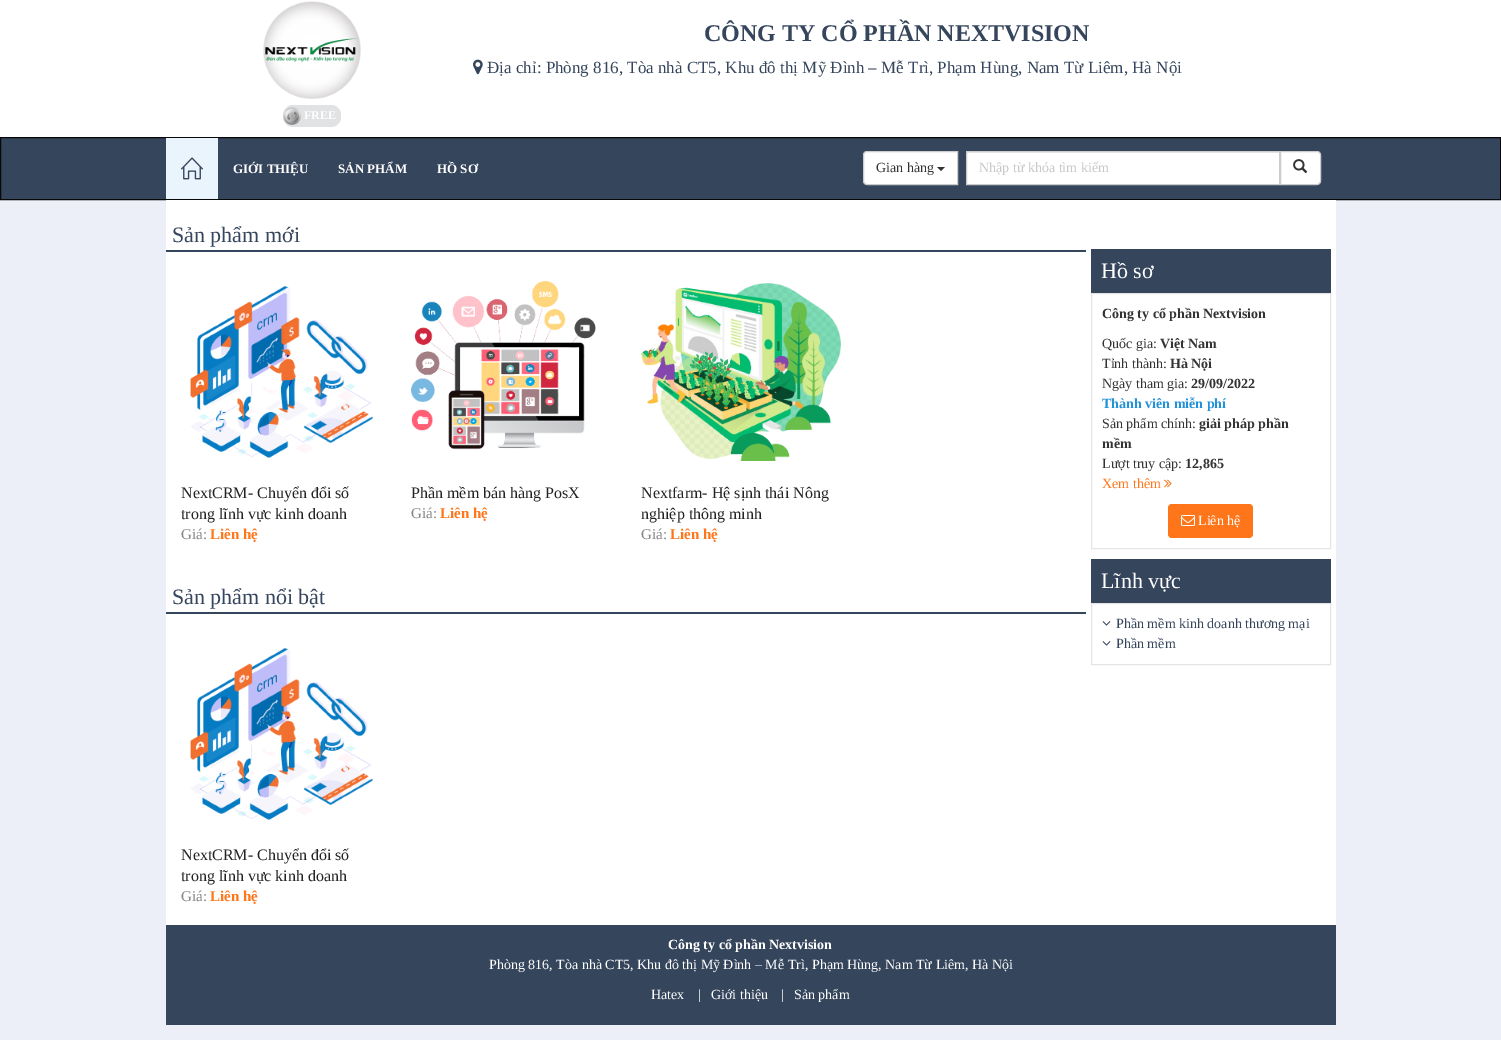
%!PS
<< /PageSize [1501 1040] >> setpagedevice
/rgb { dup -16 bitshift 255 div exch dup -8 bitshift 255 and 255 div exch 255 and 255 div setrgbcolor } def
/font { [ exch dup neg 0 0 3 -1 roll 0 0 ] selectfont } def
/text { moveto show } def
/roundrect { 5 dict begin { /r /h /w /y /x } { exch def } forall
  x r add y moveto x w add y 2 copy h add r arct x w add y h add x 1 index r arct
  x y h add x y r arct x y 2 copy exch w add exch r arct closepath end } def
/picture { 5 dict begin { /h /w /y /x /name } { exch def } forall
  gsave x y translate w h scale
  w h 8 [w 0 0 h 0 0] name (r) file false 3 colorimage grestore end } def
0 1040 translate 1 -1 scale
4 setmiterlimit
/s1 { /LiberationSerif-Bold 24 font 16#35455C rgb } def
/s2 { /LiberationSerif-Regular 17 font 16#35455C rgb } def
/s3 { /LiberationSerif-Bold 12 font 16#FFFFFF rgb } def
/s4 { /LiberationSerif-Bold 13 font 16#FFFFFF rgb } def
/s5 { /LiberationSerif-Regular 14 font 16#333333 rgb } def
/s6 { /LiberationSerif-Regular 14 font 16#C8C8C8 rgb } def
/s7 { /LiberationSerif-Regular 22 font 16#35455C rgb } def
/s8 { /LiberationSerif-Regular 16 font 16#222222 rgb } def
/s9 { /LiberationSerif-Regular 15 font 16#868686 rgb } def
/s10 { /LiberationSerif-Bold 15 font 16#FF7519 rgb } def
/s11 { /LiberationSerif-Regular 22 font 16#FFFFFF rgb } def
/s12 { /LiberationSerif-Bold 14 font 16#333333 rgb } def
/s13 { /LiberationSerif-Bold 14 font 16#2192D9 rgb } def
/s14 { /LiberationSerif-Regular 14 font 16#FF7519 rgb } def
/s15 { /LiberationSerif-Regular 14 font 16#FFFFFF rgb } def
/s16 { /LiberationSerif-Regular 14 font 16#35455C rgb } def
/s17 { /LiberationSerif-Bold 14 font 16#FFFFFF rgb } def
16#ECEFF7 rgb
0 0 1501 1040 rectfill
16#FFFFFF rgb
0 0 1501 137 rectfill
s1
(CÔNG TY CỔ PHẦN NEXTVISION) 704 41 text
(pic1.raw) 473 59 10 16 picture
s2
(Địa chỉ: Phòng 816, Tòa nhà CT5, Khu đô thị Mỹ Đình – Mễ Trì, Phạm Hùng, Nam Từ Liêm, Hà Nội) 487 73 text
(pic2.raw) 263 1 98 98 picture
16#E0E2E4 rgb
283 105 58 22 10 roundrect fill
(pic3.raw) 283 107 18 18 picture
s3
(FREE) 304 119 text
16#35455C rgb
0.5 137.5 moveto 1500.5 137.5 lineto 1500.5 199.5 lineto 0.5 199.5 lineto closepath gsave fill grestore
16#080808 rgb
stroke
16#E9F4FD rgb
166 138 52 61 rectfill
(pic4.raw) 181 157 22 23 picture
s4
(GIỚI THIỆU) 233 173 text
(SẢN PHẨM) 338 173 text
(HỒ SƠ) 437 173 text
867 151.5 moveto 957.5 151.5 lineto 957.5 184.5 lineto 867 184.5 lineto 865 184.5 863.5 183 863.5 181 curveto 863.5 155 lineto 863.5 153 865 151.5 867 151.5 curveto closepath gsave fill grestore
16#CCCCCC rgb
stroke
s5
(Gian hàng) 876 172 text
937 167 moveto 945 167 lineto 941 171 lineto closepath fill
16#FFFFFF rgb
967 153 312 31 rectfill
16#ECECEC rgb
967 152 312 1 rectfill
16#CCCCCC rgb
966.5 151.5 313 33 rectstroke
s6
(Nhập từ khóa tìm kiếm) 979 172 text
16#FFFFFF rgb
1280.5 151.5 moveto 1317 151.5 lineto 1319 151.5 1320.5 153 1320.5 155 curveto 1320.5 181 lineto 1320.5 183 1319 184.5 1317 184.5 curveto 1280.5 184.5 lineto closepath gsave fill grestore
16#CCCCCC rgb
stroke
(pic5.raw) 1293 159 15 14 picture
16#FFFFFF rgb
166 200 1170 725 rectfill
16#35455C rgb
166 250 920 2 rectfill
s7
(Sản phẩm mới) 172 242 text
(pic6.raw) 190 286 183 172 picture
s8
(NextCRM- Chuyển đổi số) 181 498 text
(trong lĩnh vực kinh doanh) 181 519 text
s9
(Giá:) 181 539 text
s10
(Liên hệ) 210 539 text
(pic7.raw) 411 281 185 169 picture
s8
(Phần mềm bán hàng PosX) 411 498 text
s9
(Giá:) 411 518 text
s10
(Liên hệ) 440 518 text
(pic8.raw) 641 283 200 178 picture
s8
(Nextfarm- Hệ sịnh thái Nông) 641 498 text
(nghiệp thông minh) 641 519 text
s9
(Giá:) 641 539 text
s10
(Liên hệ) 670 539 text
16#35455C rgb
166 612 920 2 rectfill
s7
(Sản phẩm nổi bật) 172 604 text
(pic6.raw) 190 648 183 172 picture
s8
(NextCRM- Chuyển đổi số) 181 860 text
(trong lĩnh vực kinh doanh) 181 881 text
s9
(Giá:) 181 901 text
s10
(Liên hệ) 210 901 text
16#35455C rgb
1091 249 240 44 rectfill
s11
(Hồ sơ) 1101 278 text
16#E5E5E5 rgb
1091.5 293.5 239 255 rectstroke
s12
(Công ty cổ phần Nextvision) 1102 318 text
s5
(Quốc gia:) 1102 348 text
s12
(Việt Nam) 1160 348 text
s5
(Tỉnh thành:) 1102 368 text
s12
(Hà Nội) 1170 368 text
s5
(Ngày tham gia:) 1102 388 text
s12
(29/09/2022) 1191 388 text
s13
(Thành viên miễn phí) 1102 408 text
s5
(Sản phẩm chính:) 1102 428 text
s12
(giải pháp phần) 1199 428 text
(mềm) 1102 448 text
s5
(Lượt truy cập:) 1102 468 text
s12
(12,865) 1185 468 text
s14
(Xem thêm) 1102 488 text
(pic9.raw) 1164 479 8 9 picture
1168 504 85 34 4 roundrect fill
(pic10.raw) 1181 515 14 11 picture
s15
(Liên hệ) 1198 525 text
16#35455C rgb
1091 559 240 44 rectfill
s11
(Lĩnh vực) 1101 588 text
16#E5E5E5 rgb
1091.5 603.5 239 61 rectstroke
(pic11.raw) 1102 621 9 5 picture
s16
(Phần mềm kinh doanh thương mại) 1116 628 text
(pic11.raw) 1102 641 9 5 picture
(Phần mềm) 1116 648 text
166 925 1170 100 rectfill
s17
(Công ty cổ phần Nextvision) 668 949 text
s15
(Phòng 816, Tòa nhà CT5, Khu đô thị Mỹ Đình – Mễ Trì, Phạm Hùng, Nam Từ Liêm, Hà Nội) 489 969 text
(Hatex) 651 999 text
(|) 698 999 text
(Giới thiệu) 711 999 text
(|) 781 999 text
(Sản phẩm) 794 999 text
showpage
